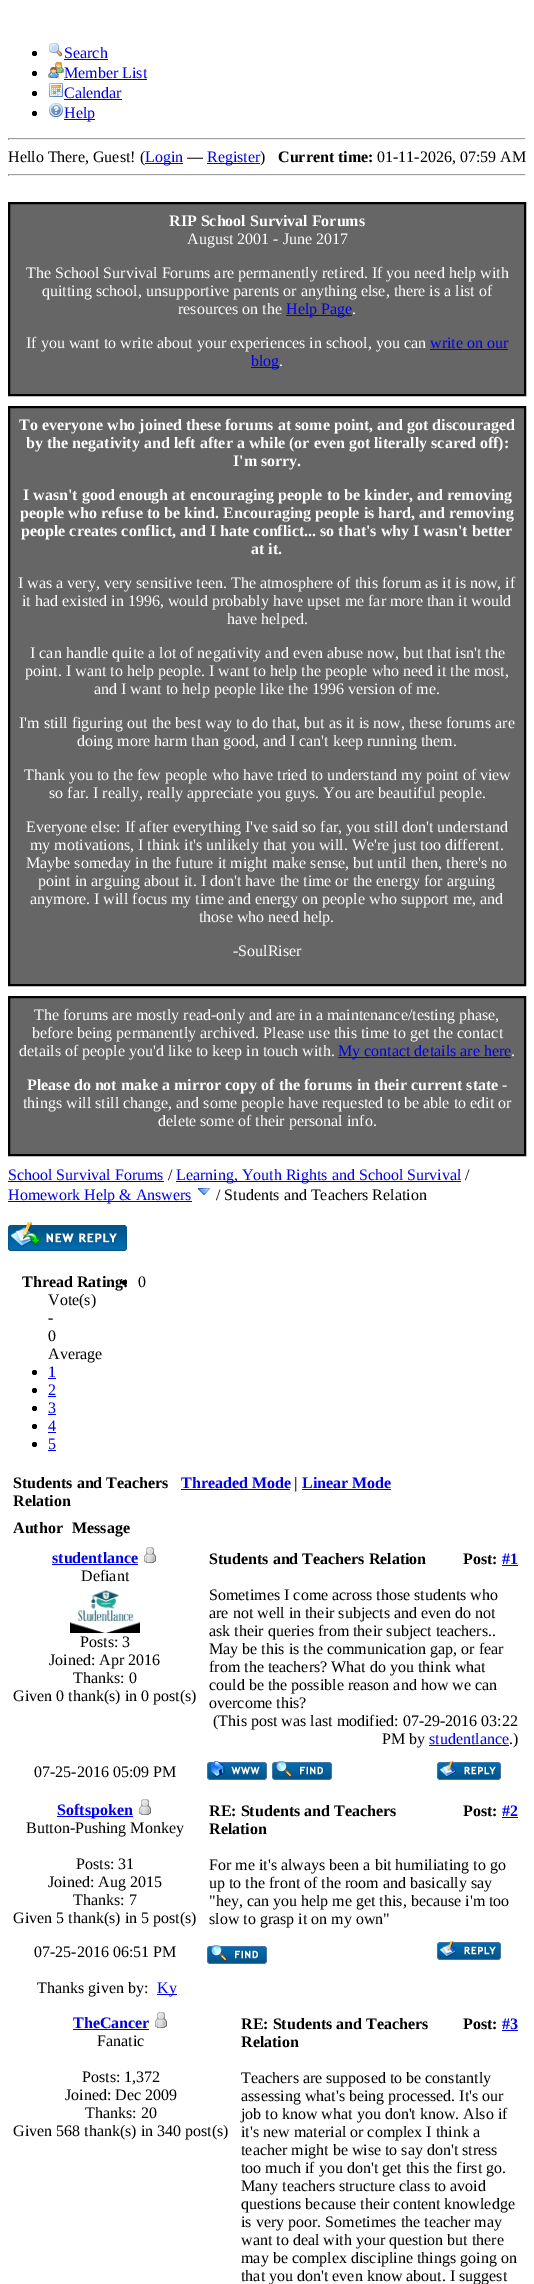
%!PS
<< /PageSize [534 2284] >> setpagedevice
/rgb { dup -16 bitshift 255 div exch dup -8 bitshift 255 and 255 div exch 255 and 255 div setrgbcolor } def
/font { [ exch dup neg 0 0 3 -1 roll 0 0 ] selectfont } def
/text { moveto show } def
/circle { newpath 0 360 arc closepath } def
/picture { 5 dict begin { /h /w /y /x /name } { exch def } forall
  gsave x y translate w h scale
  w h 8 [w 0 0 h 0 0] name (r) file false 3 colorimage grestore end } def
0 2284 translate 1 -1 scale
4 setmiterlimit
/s1 { /LiberationSerif-Regular 16 font 16#0000EE rgb } def
/s2 { /LiberationSerif-Regular 16 font 16#000000 rgb } def
/s3 { /LiberationSerif-Bold 16 font 16#000000 rgb } def
/s4 { /LiberationSerif-Bold 16 font 16#FFFFFF rgb } def
/s5 { /LiberationSerif-Regular 16 font 16#FFFFFF rgb } def
/s6 { /LiberationSerif-Bold 16 font 16#0000EE rgb } def
16#FFFFFF rgb
0 0 534 2284 rectfill
16#000000 rgb
34.5 53.5 2.5 circle fill
(pic1.raw) 49 43 13 14 picture
s1
(Search) 64 58 text
64 59 44 1 rectfill
16#000000 rgb
34.5 73.5 2.5 circle fill
(pic2.raw) 48 62 16 16 picture
s1
(Member List) 64 78 text
64 79 83 1 rectfill
16#000000 rgb
34.5 93.5 2.5 circle fill
(pic3.raw) 49 83 14 14 picture
s1
(Calendar) 64 98 text
64 99 58 1 rectfill
16#000000 rgb
34.5 113.5 2.5 circle fill
(pic4.raw) 49 103 14 14 picture
16#0000EE rgb
64 119 31 1 rectfill
(Help) 64 118 text
16#9F9F9F rgb
8 138 518 1 rectfill
16#EEEEEE rgb
525 138 1 2 rectfill
8 139 518 1 rectfill
16#9F9F9F rgb
8 138 1 2 rectfill
s2
(Hello There, Guest! \() 8 162 text
16#0000EE rgb
145 163 38 1 rectfill
(Login) 145 162 text
s2
(—) 187 162 text
16#0000EE rgb
207 163 53 1 rectfill
(Register) 207 162 text
s2
(\)) 260 162 text
s3
(Current time:) 278 162 text
s2
(01-11-2026, 07:59 AM) 377 162 text
16#9F9F9F rgb
8 174 518 1 rectfill
16#EEEEEE rgb
525 174 1 2 rectfill
8 175 518 1 rectfill
16#9F9F9F rgb
8 174 1 2 rectfill
16#666666 rgb
9 203 moveto 525 203 lineto 525 395 lineto 9 395 lineto closepath gsave fill grestore
16#000000 rgb
2 setlinewidth
stroke
s4
(RIP School Survival Forums) 169 226 text
s5
(August 2001 - June 2017) 187 244 text
(The School Survival Forums are permanently retired. If you need help with) 26 278 text
(quitting school, unsupportive parents or anything else, there is a list of) 42 296 text
(resources on the) 178 314 text
16#0000EE rgb
286 315 66 1 rectfill
(Help Page) 286 314 text
s5
(.) 352 314 text
(If you want to write about your experiences in school, you can) 26 348 text
s1
(write on our) 430 348 text
430 349 78 1 rectfill
251 367 28 1 rectfill
(blog) 251 366 text
s5
(.) 279 366 text
16#666666 rgb
9 407 moveto 525 407 lineto 525 985 lineto 9 985 lineto closepath gsave fill grestore
16#000000 rgb
stroke
s4
(To everyone who joined these forums at some point, and got discouraged) 19 430 text
(by the negativity and left after a while \(or even got literally scared off\):) 26 448 text
(I'm sorry.) 233 466 text
(I wasn't good enough at encouraging people to be kinder, and removing) 23 500 text
(people who refuse to be kind. Encouraging people is hard, and removing) 20 518 text
(people creates conflict, and I hate conflict... so that's why I wasn't better) 21 536 text
(at it.) 251 554 text
s5
(I was a very, very sensitive teen. The atmosphere of this forum as it is now, if) 18 588 text
(it had existed in 1996, would probably have upset me far more than it would) 22 606 text
(have helped.) 227 624 text
(I can handle quite a lot of negativity and even abuse now, but that isn't the) 30 658 text
(point. I want to help people. I want to help the people who need it the most,) 25 676 text
(and I want to help people like the 1996 version of me.) 94 694 text
(I'm still figuring out the best way to do that, but as it is now, these forums are) 19 728 text
(doing more harm than good, and I can't keep running them.) 77 746 text
(Thank you to the few people who have tried to understand my point of view) 24 780 text
(so far. I really, really appreciate you guys. You are beautiful people.) 49 798 text
(Everyone else: If after everything I've said so far, you still don't understand) 26 832 text
(my motivations, I think it's unlikely that you will. We're just too different.) 30 850 text
(Maybe someday in the future it might make sense, but until then, there's no) 26 868 text
(point in arguing about it. I don't have the time or the energy for arguing) 38 886 text
(anymore. I will focus my time and energy on people who support me, and) 30 904 text
(those who need help.) 199 922 text
(-SoulRiser) 233 956 text
16#666666 rgb
9 997 moveto 525 997 lineto 525 1155 lineto 9 1155 lineto closepath gsave fill grestore
16#000000 rgb
stroke
s5
(The forums are mostly read-only and are in a maintenance/testing phase,) 34 1020 text
(before being permanently archived. Please use this time to get the contact) 32 1038 text
(details of people you'd like to keep in touch with.) 19 1056 text
16#0000EE rgb
338 1057 173 1 rectfill
(My contact details are here) 338 1056 text
s5
(.) 511 1056 text
s4
(Please do not make a mirror copy of the forums in their current state) 27 1090 text
s5
(-) 502 1090 text
(things will still change, and some people have requested to be able to edit or) 23 1108 text
(delete some of their personal info.) 158 1126 text
s1
(School Survival Forums) 8 1180 text
8 1181 156 1 rectfill
s2
(/) 168 1180 text
16#0000EE rgb
176 1181 285 1 rectfill
(Learning, Youth Rights and School Survival) 176 1180 text
s2
(/) 465 1180 text
16#0000EE rgb
8 1201 184 1 rectfill
(Homework Help & Answers) 8 1200 text
(pic5.raw) 198 1188 12 7 picture
s2
(/ Students and Teachers Relation) 216 1200 text
(pic6.raw) 8 1222 119 29 picture
s3
(Thread Rating:) 22 1287 text
124.5 1282.5 2.5 circle fill
s2
(0) 138 1287 text
(Vote\(s\)) 48 1305 text
(-) 48 1323 text
(0) 48 1341 text
(Average) 48 1359 text
34.5 1372.5 2.5 circle fill
s1
(1) 48 1377 text
48 1378 8 1 rectfill
16#000000 rgb
34.5 1390.5 2.5 circle fill
s1
(2) 48 1395 text
48 1396 8 1 rectfill
16#000000 rgb
34.5 1408.5 2.5 circle fill
s1
(3) 48 1413 text
48 1414 8 1 rectfill
16#000000 rgb
34.5 1426.5 2.5 circle fill
s1
(4) 48 1431 text
48 1432 8 1 rectfill
16#000000 rgb
34.5 1444.5 2.5 circle fill
s1
(5) 48 1449 text
48 1450 8 1 rectfill
s3
(Students and Teachers) 13 1488 text
(Relation) 13 1506 text
s6
(Threaded Mode) 181 1488 text
181 1489 109 1 rectfill
s3
(|) 294 1488 text
s6
(Linear Mode) 302 1488 text
302 1489 89 1 rectfill
s3
(Author) 13 1533 text
(Message) 72 1533 text
s6
(studentlance) 52 1563 text
52 1564 86 1 rectfill
(pic7.raw) 144 1547 12 16 picture
s2
(Defiant) 81 1581 text
(pic8.raw) 70 1590 70 43 picture
(Posts: 3) 80 1647 text
(Joined: Apr 2016) 49 1665 text
(Thanks: 0) 73 1683 text
(Given 0 thank\(s\) in 0 post\(s\)) 13 1701 text
s3
(Students and Teachers Relation) 209 1564 text
(Post:) 463 1564 text
s6
(#1) 502 1564 text
502 1565 16 1 rectfill
s2
(Sometimes I come across those students who) 209 1600 text
(are not well in their subjects and even do not) 209 1618 text
(ask their queries from their subject teachers..) 209 1636 text
(May be this is the communication gap, or fear) 209 1654 text
(from the teachers? What do you think what) 209 1672 text
(could be the possible reason and how we can) 209 1690 text
(overcome this?) 209 1708 text
(\(This post was last modified: 07-29-2016 03:22) 213 1726 text
(PM by) 382 1744 text
s1
(studentlance) 429 1744 text
s2
(.\)) 509 1744 text
16#0000EE rgb
429 1745 80 1 rectfill
s2
(07-25-2016 05:09 PM) 34 1777 text
(pic9.raw) 207 1761 60 19 picture
(pic10.raw) 272 1761 60 19 picture
(pic11.raw) 437 1761 64 19 picture
16#0000EE rgb
57 1816 76 1 rectfill
s6
(Softspoken) 57 1815 text
(pic7.raw) 139 1799 12 16 picture
s2
(Button-Pushing Monkey) 26 1833 text
(Posts: 31) 76 1869 text
(Joined: Aug 2015) 48 1887 text
(Thanks: 7) 73 1905 text
(Given 5 thank\(s\) in 5 post\(s\)) 13 1923 text
s3
(RE: Students and Teachers) 209 1816 text
(Post:) 463 1816 text
s6
(#2) 502 1816 text
502 1817 16 1 rectfill
s3
(Relation) 209 1834 text
s2
(For me it's always been a bit humiliating to go) 209 1870 text
(up to the front of the room and basically say) 209 1888 text
("hey, can you help me get this, because i'm too) 209 1906 text
(slow to grasp it on my own") 209 1924 text
(07-25-2016 06:51 PM) 34 1957 text
(pic10.raw) 207 1945 60 19 picture
(pic11.raw) 437 1941 64 19 picture
(Thanks given by:) 37 1993 text
16#0000EE rgb
157 1994 20 1 rectfill
(Ky) 157 1993 text
s6
(TheCancer) 73 2028 text
73 2029 76 1 rectfill
(pic7.raw) 155 2012 12 16 picture
s2
(Fanatic) 97 2046 text
(Posts: 1,372) 82 2082 text
(Joined: Dec 2009) 65 2100 text
(Thanks: 20) 85 2118 text
(Given 568 thank\(s\) in 340 post\(s\)) 13 2136 text
s3
(RE: Students and Teachers) 241 2029 text
(Post:) 463 2029 text
s6
(#3) 502 2029 text
502 2030 16 1 rectfill
s3
(Relation) 241 2047 text
s2
(Teachers are supposed to be constantly) 241 2083 text
(assessing what's being processed. It's our) 241 2101 text
(job to know what you don't know. Also if) 241 2119 text
(it's new material or complex I think a) 241 2137 text
(teacher might be wise to say don't stress) 241 2155 text
(too much if you don't get this the first go.) 241 2173 text
(Many teachers structure class to avoid) 241 2191 text
(questions because their content knowledge) 241 2209 text
(is very poor. Sometimes the teacher may) 241 2227 text
(want to deal with your question but there) 241 2245 text
(may be complex discipline things going on) 241 2263 text
(that you don't even know about. I suggest) 241 2281 text
showpage
